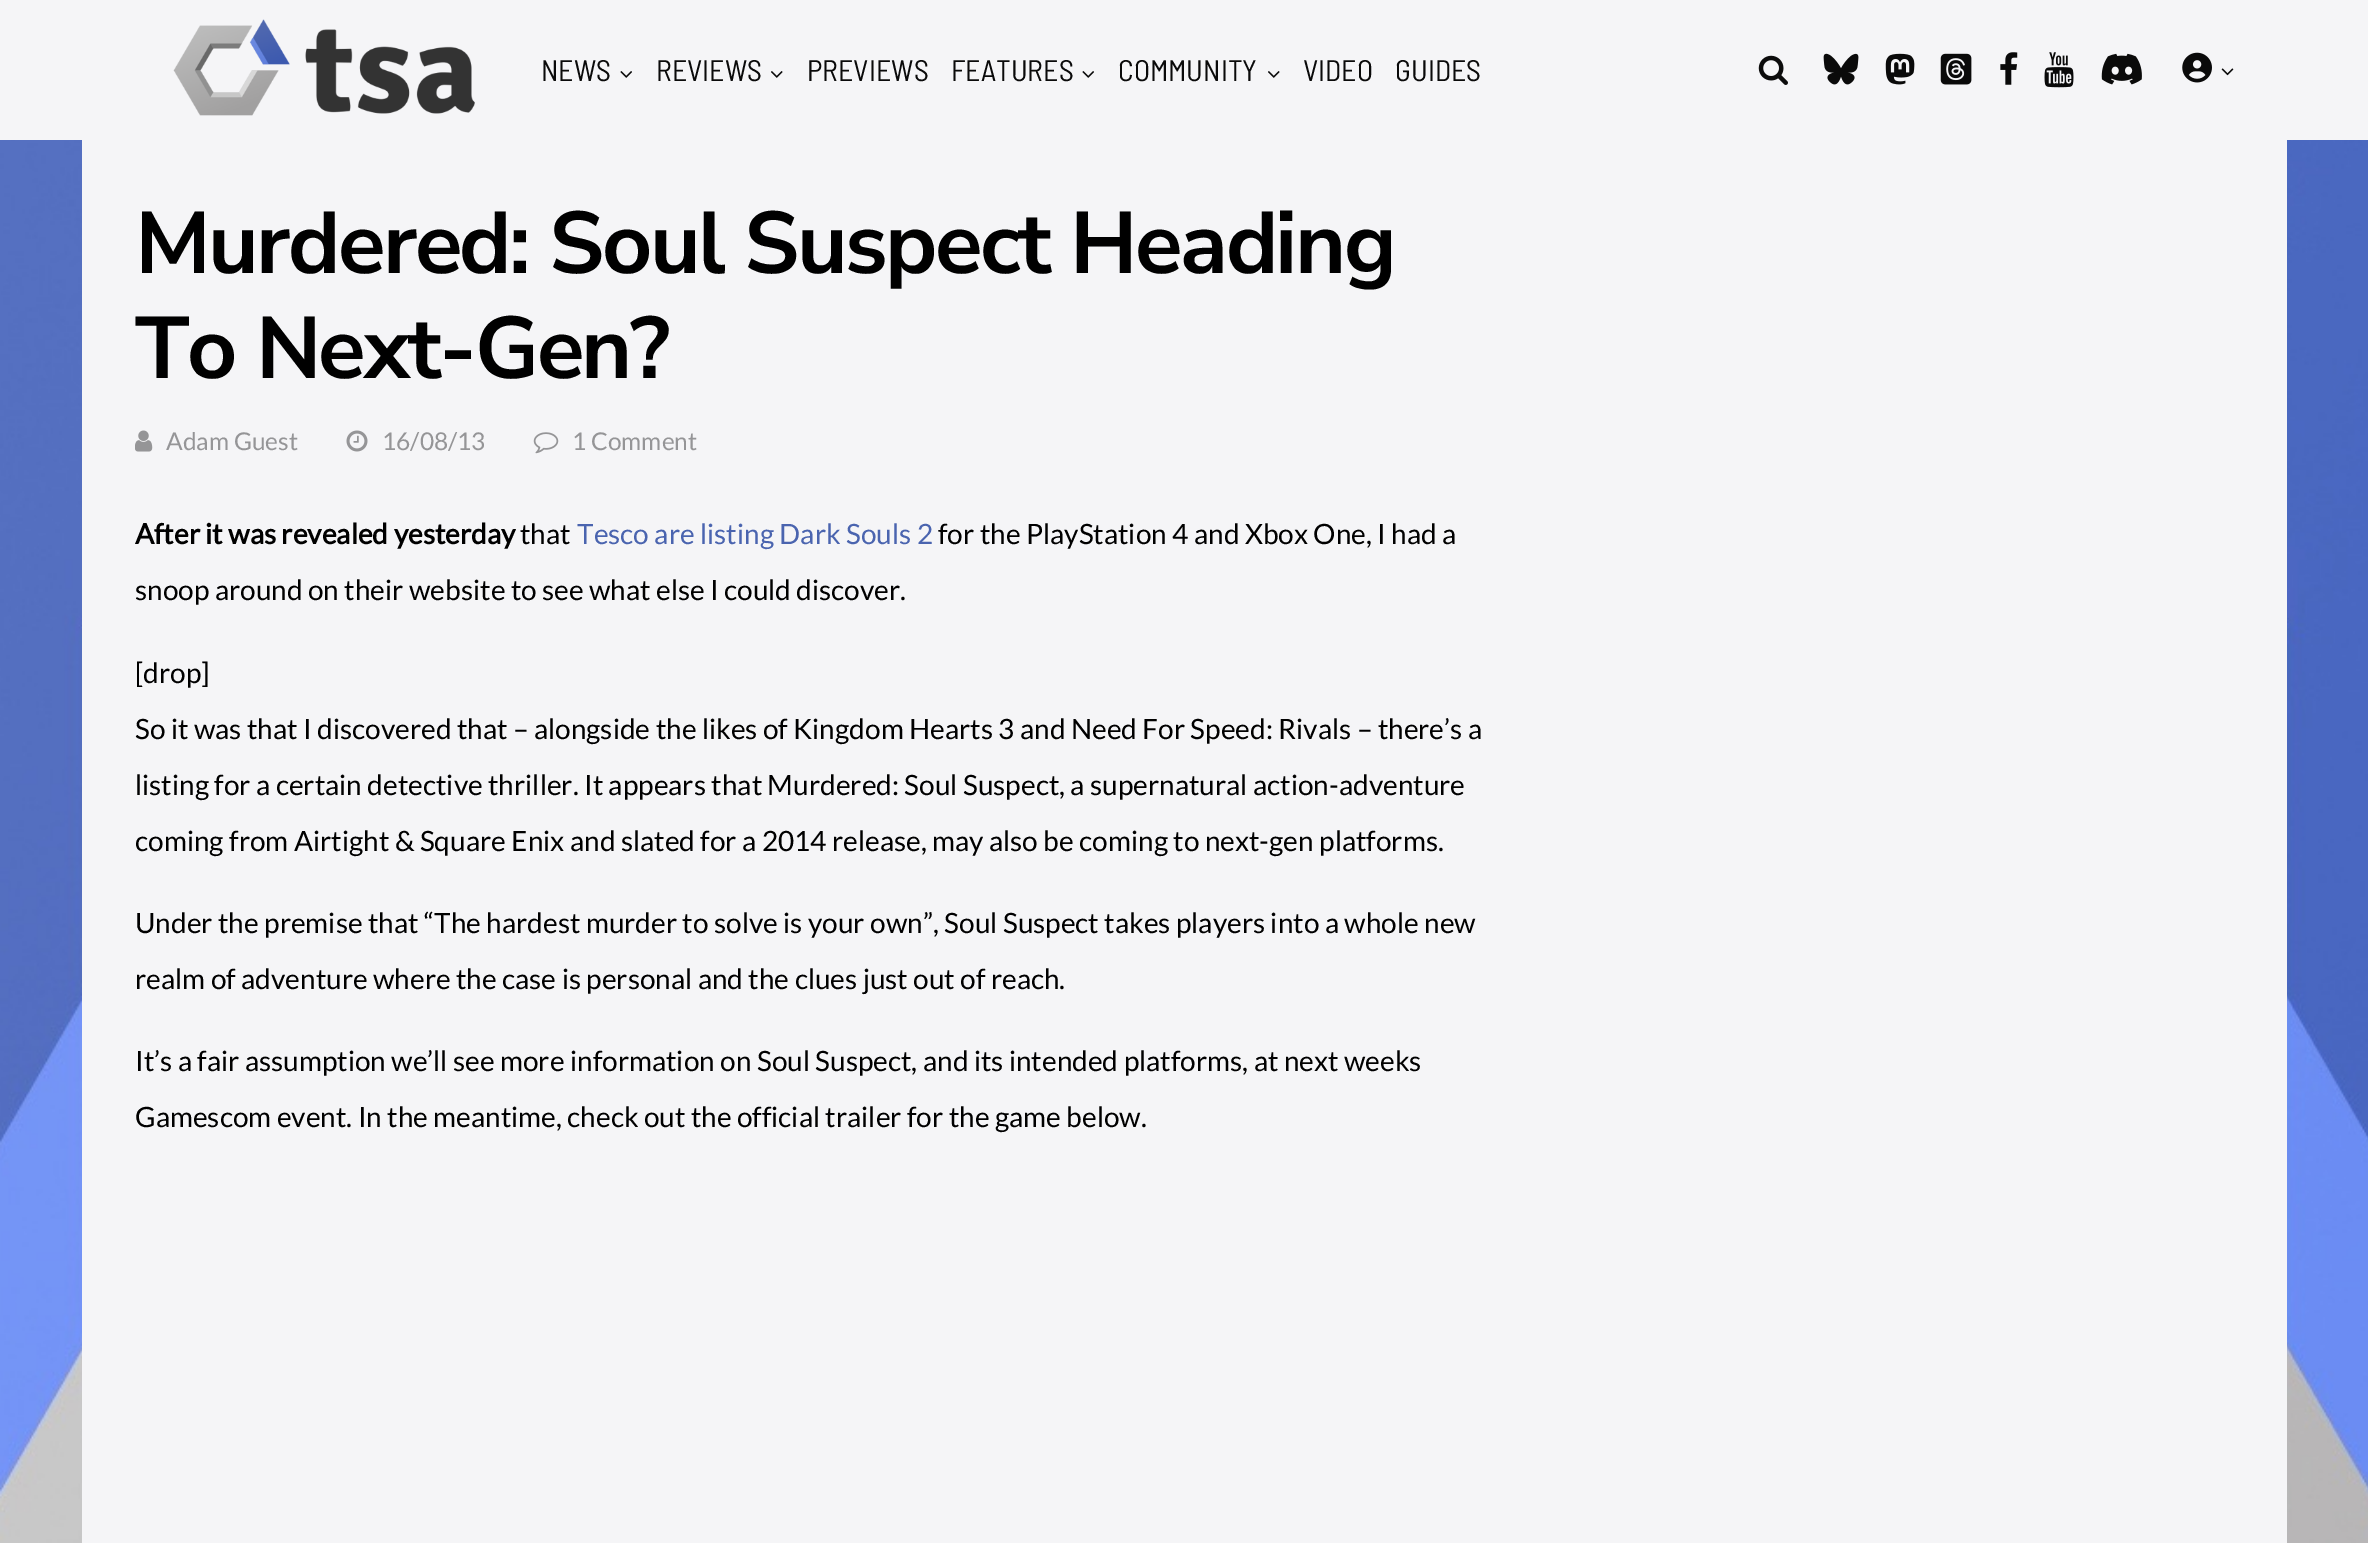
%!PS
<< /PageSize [2368 1543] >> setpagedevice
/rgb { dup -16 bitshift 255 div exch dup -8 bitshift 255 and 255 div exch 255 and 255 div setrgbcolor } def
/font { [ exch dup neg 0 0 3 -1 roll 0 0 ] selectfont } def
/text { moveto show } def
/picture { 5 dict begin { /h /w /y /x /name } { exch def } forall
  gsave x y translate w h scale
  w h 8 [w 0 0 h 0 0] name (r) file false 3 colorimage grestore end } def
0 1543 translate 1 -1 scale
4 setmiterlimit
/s1 { /BarlowSemiCondensed-Regular 29.75 font 16#0A0A0A rgb } def
/s2 { /Lato-Regular 24.5 font 16#959597 rgb } def
/s3 { /Lato-Bold 28 font 16#000000 rgb } def
/s4 { /Lato-Regular 28 font 16#000000 rgb } def
/s5 { /Lato-Regular 28 font 16#4A64AF rgb } def
16#FFFFFF rgb
0 0 2368 1543 rectfill
(pic1.raw) 0 140 2368 1403 picture
16#F5F5F7 rgb
0 0 2368 140 rectfill
(pic2.raw) 173 19 302 97 picture
s1
(NEWS) 541 81 text
(pic3.raw) 620 71 12 7 picture
(REVIEWS) 656 81 text
(pic4.raw) 771 71 12 7 picture
(PREVIEWS) 807 81 text
(FEATURES) 951 81 text
(pic3.raw) 1082 71 12 7 picture
(COMMUNITY) 1118 81 text
(pic4.raw) 1268 71 12 7 picture
(VIDEO) 1303 81 text
(GUIDES) 1395 81 text
(pic5.raw) 1758 55 30 30 picture
(pic6.raw) 1823 53 36 32 picture
(pic7.raw) 1885 53 30 32 picture
(pic8.raw) 1940 53 32 32 picture
(pic9.raw) 2000 52 18 33 picture
(pic10.raw) 2044 52 30 36 picture
(pic11.raw) 2101 53 41 32 picture
(pic12.raw) 2182 52 30 31 picture
(pic13.raw) 2221 68 13 8 picture
16#F5F5F7 rgb
82 140 2205 1403 rectfill
/NunitoSans-Bold 87.5 font
16#000000 rgb
135 273 moveto -2.6 0 (Murdered: Soul Suspect Heading) ashow
135 378 moveto -2.6 0 (To Next-Gen?) ashow
(pic14.raw) 135 430 18 22 picture
s2
(Adam Guest) 166 450 text
(pic15.raw) 346 430 22 22 picture
(16/08/13) 382 450 text
(pic16.raw) 533 432 26 22 picture
(1 Comment) 572 450 text
s3
(After it was revealed yesterday) 135 544 text
s4
(that) 520 544 text
s5
(Tesco are listing Dark Souls 2) 577 544 text
s4
(for the PlayStation 4 and Xbox One, I had a) 938 544 text
(snoop around on their website to see what else I could discover.) 135 600 text
([drop]) 135 683 text
(So it was that I discovered that – alongside the likes of Kingdom Hearts 3 and Need For Speed: Rivals – there’s a) 135 739 text
(listing for a certain detective thriller. It appears that Murdered: Soul Suspect, a supernatural action-adventure) 135 795 text
(coming from Airtight & Square Enix and slated for a 2014 release, may also be coming to next-gen platforms.) 135 851 text
(Under the premise that “The hardest murder to solve is your own”, Soul Suspect takes players into a whole new) 135 933 text
(realm of adventure where the case is personal and the clues just out of reach.) 135 989 text
(It’s a fair assumption we’ll see more information on Soul Suspect, and its intended platforms, at next weeks) 135 1071 text
(Gamescom event. In the meantime, check out the official trailer for the game below.) 135 1127 text
showpage
